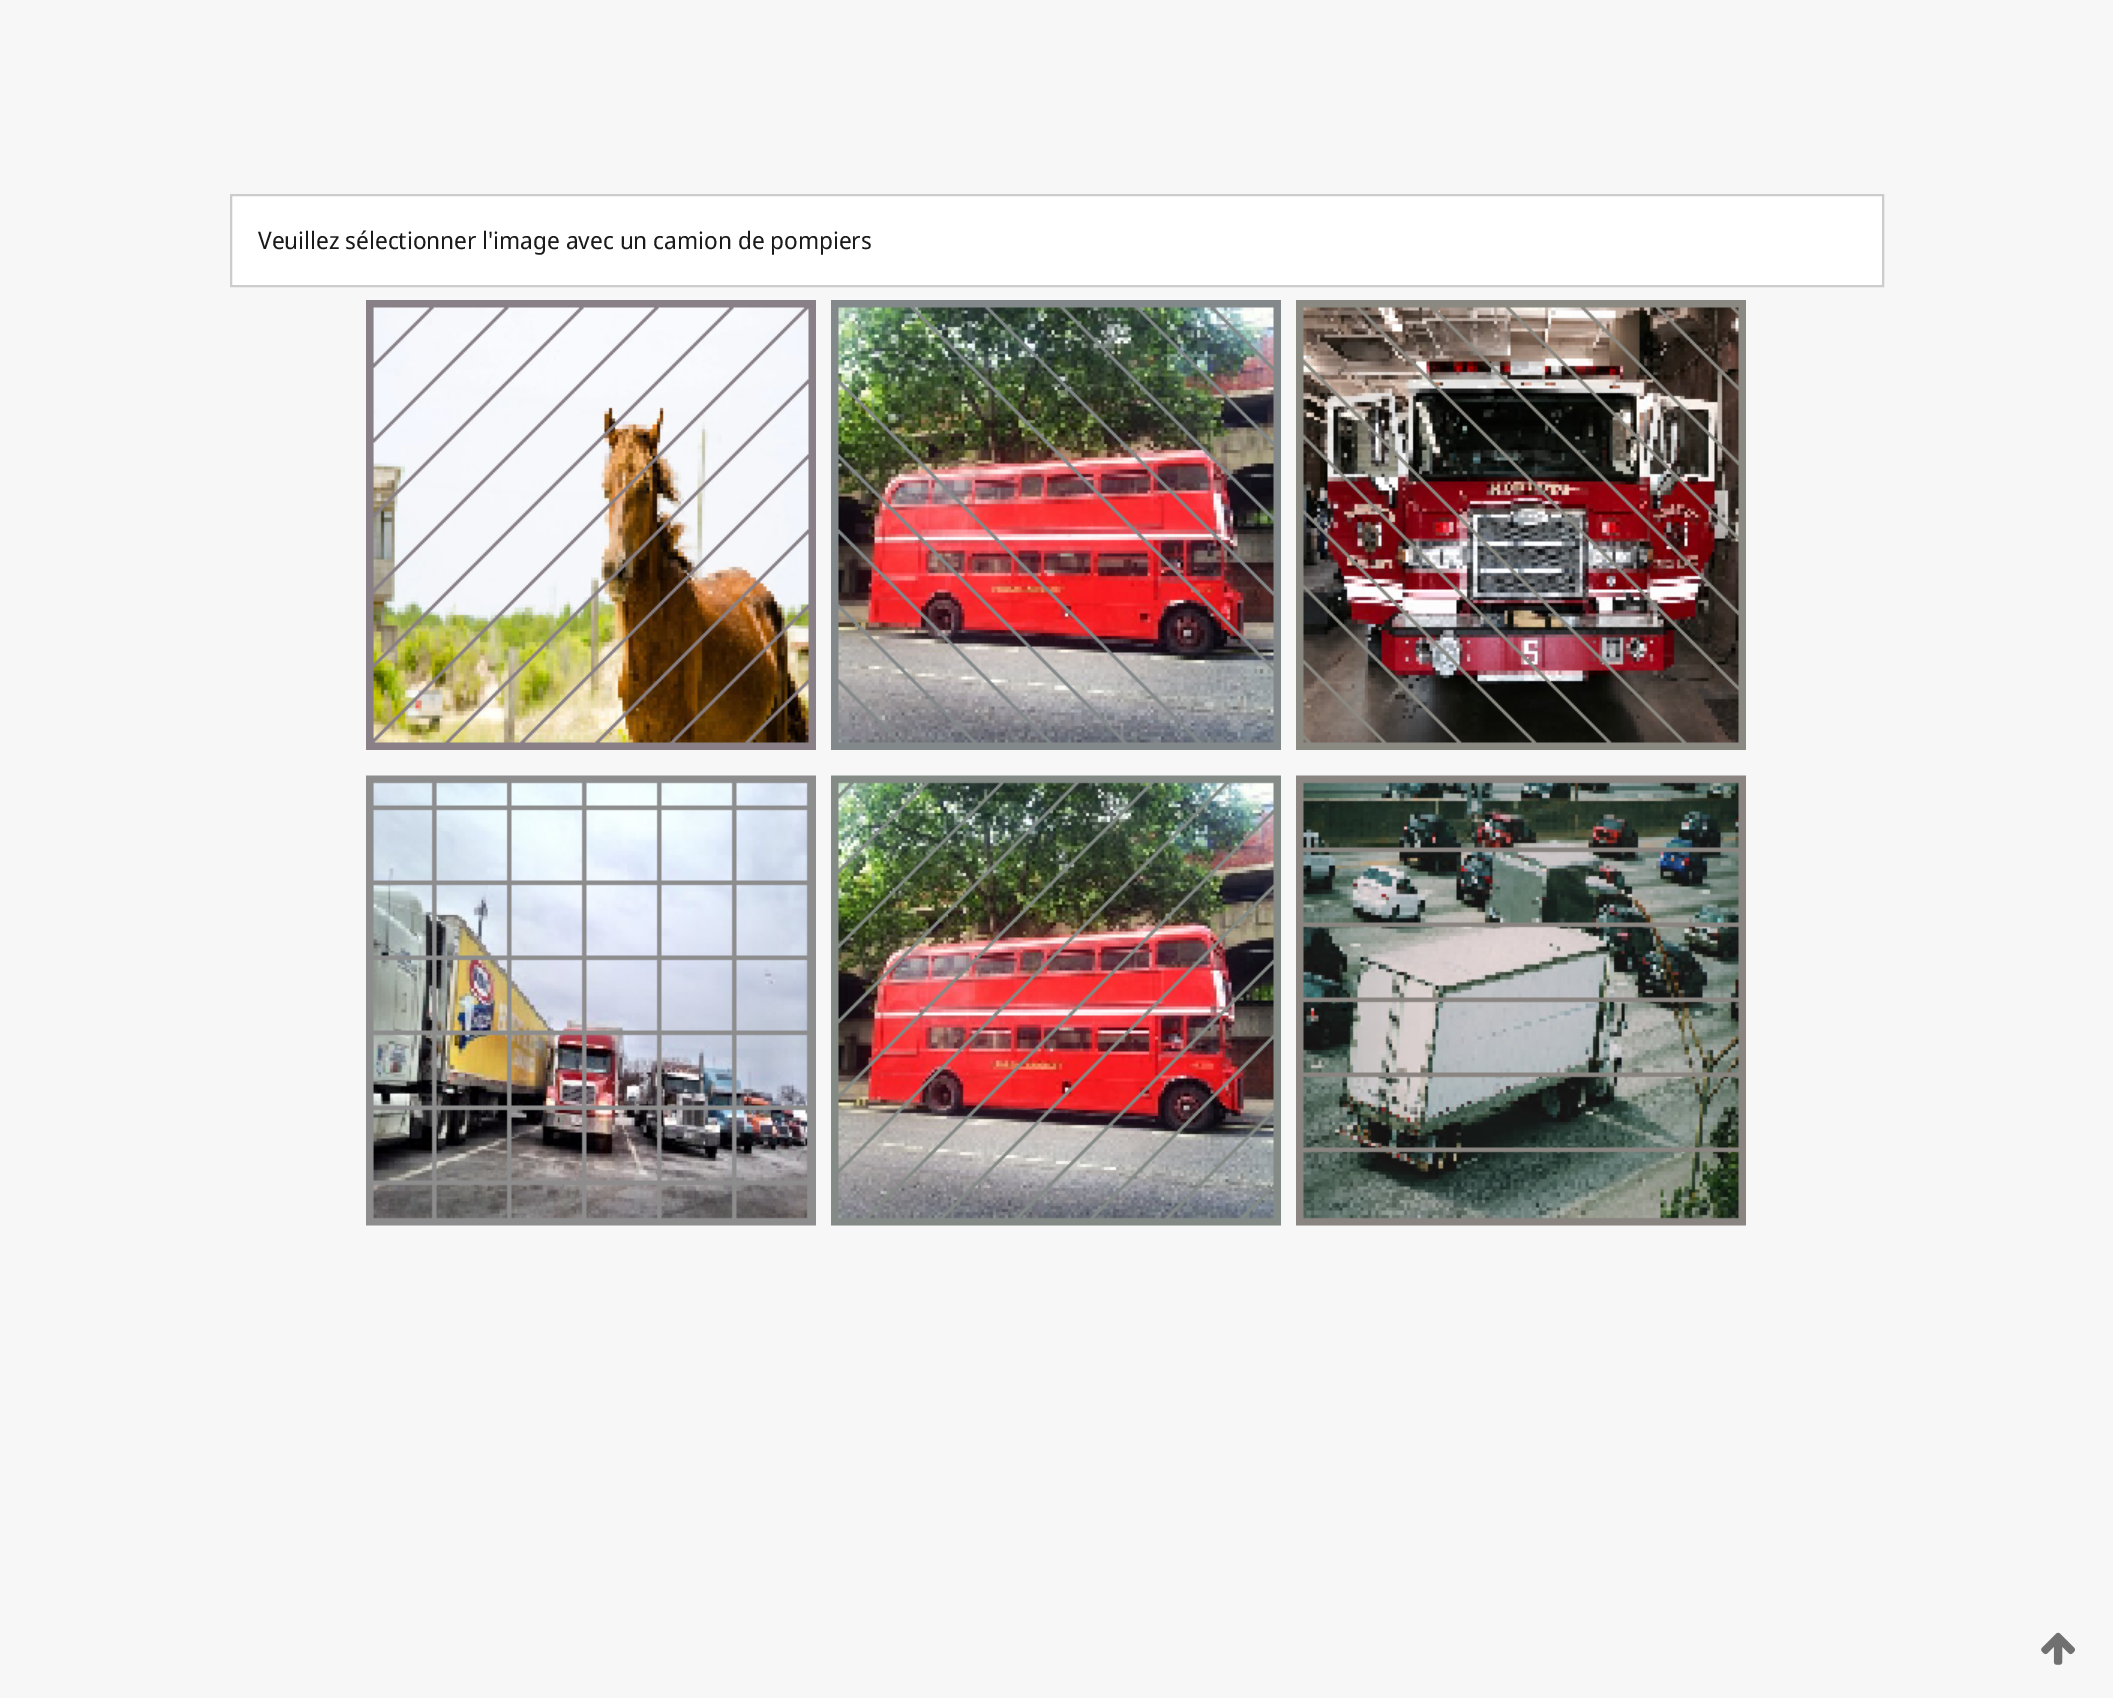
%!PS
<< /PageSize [2113 1698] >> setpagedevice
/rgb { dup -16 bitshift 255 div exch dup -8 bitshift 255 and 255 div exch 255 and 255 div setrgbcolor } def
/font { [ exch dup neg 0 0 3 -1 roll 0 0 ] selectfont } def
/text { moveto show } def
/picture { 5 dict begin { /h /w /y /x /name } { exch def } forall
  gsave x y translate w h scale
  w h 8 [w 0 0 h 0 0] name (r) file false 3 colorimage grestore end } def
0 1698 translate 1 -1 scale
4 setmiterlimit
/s1 { /NotoSansDisplay-Regular 24 font 16#1A1A1A rgb } def
16#F7F7F7 rgb
0 0 2113 1698 rectfill
16#FFFFFF rgb
231 195 moveto 1883 195 lineto 1883 286 lineto 231 286 lineto closepath gsave fill grestore
16#CCCCCC rgb
2 setlinewidth
stroke
s1
(Veuillez sélectionner l'image avec un camion de pompiers) 258 249 text
(pic1.raw) 366 300 450 450 picture
(pic2.raw) 831 300 450 450 picture
(pic3.raw) 1296 300 450 450 picture
(pic4.raw) 366 775 450 451 picture
(pic5.raw) 831 775 450 451 picture
(pic6.raw) 1296 775 450 451 picture
(pic7.raw) 2041 1632 34 33 picture
showpage
